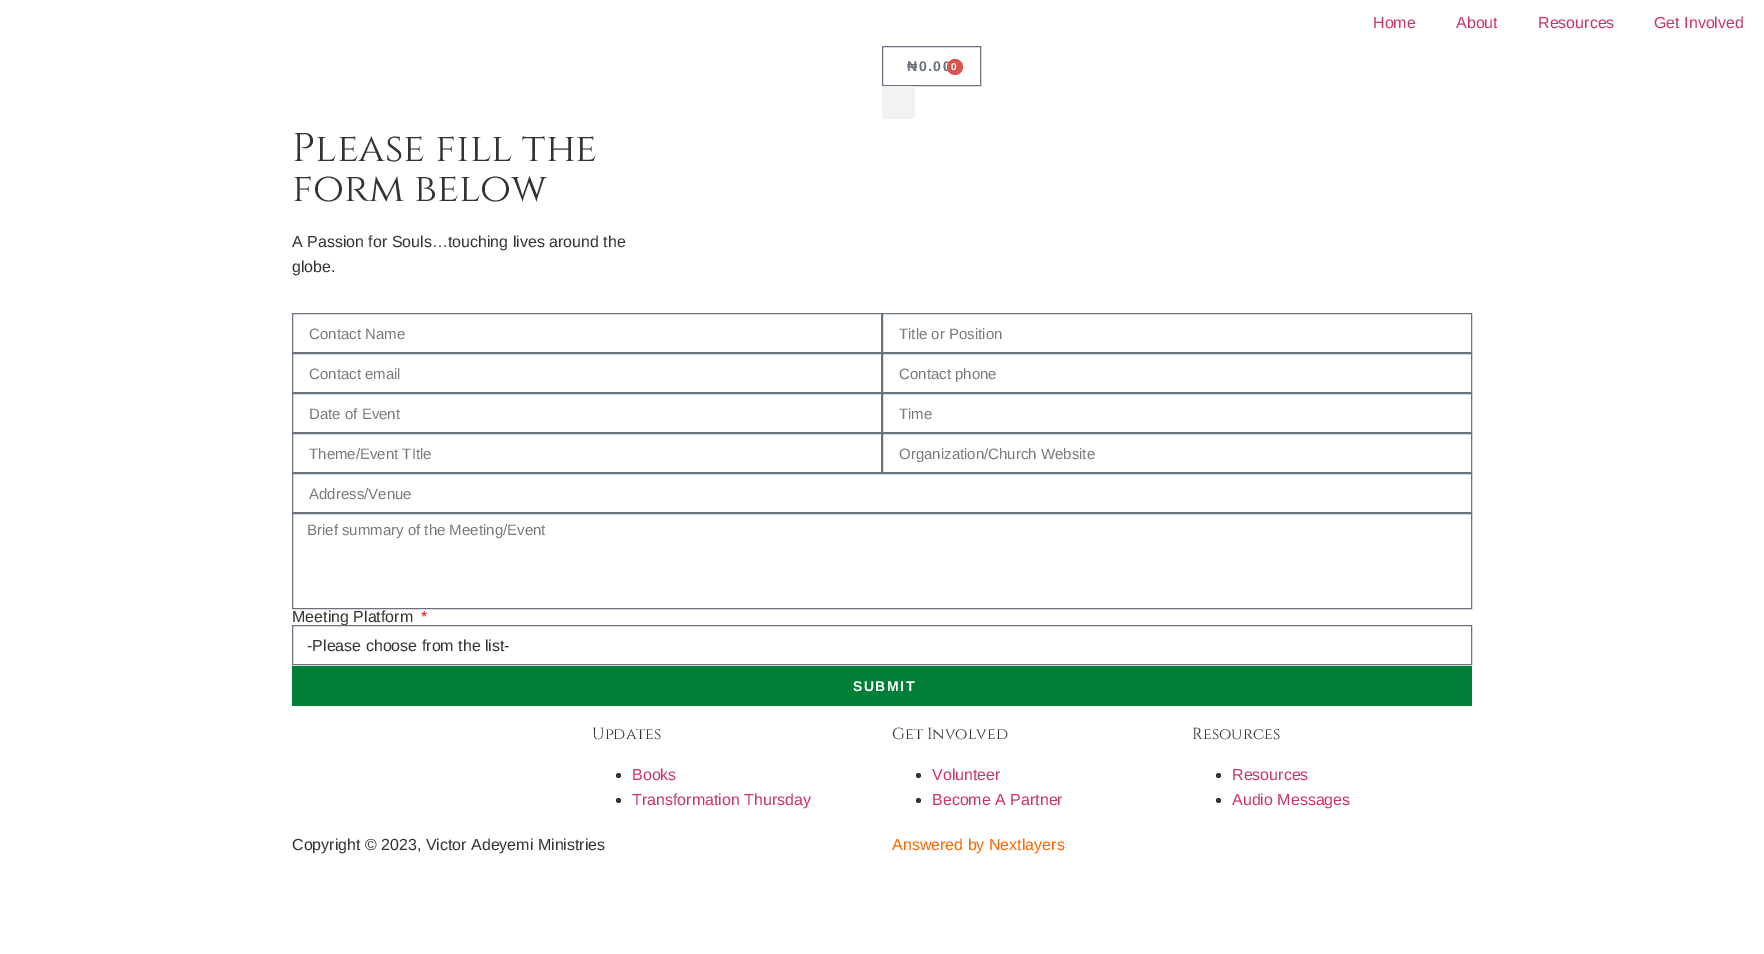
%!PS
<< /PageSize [1764 954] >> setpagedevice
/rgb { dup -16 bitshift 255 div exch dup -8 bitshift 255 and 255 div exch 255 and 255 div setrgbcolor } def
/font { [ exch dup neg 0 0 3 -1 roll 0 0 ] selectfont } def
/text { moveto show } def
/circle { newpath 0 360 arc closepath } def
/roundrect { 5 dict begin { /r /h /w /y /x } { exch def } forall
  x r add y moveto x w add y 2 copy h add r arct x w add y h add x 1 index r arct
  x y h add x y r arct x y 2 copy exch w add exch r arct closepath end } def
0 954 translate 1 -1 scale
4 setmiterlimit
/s1 { /LiberationSans-Regular 16 font 16#CC3366 rgb } def
/s2 { /Cinzel-Regular 40 font 16#333333 rgb } def
/s3 { /LiberationSans-Regular 16 font 16#333333 rgb } def
/s4 { /LiberationSans-Regular 15 font 16#797A7C rgb } def
/s5 { /LiberationSans-Regular 16 font 16#FF0000 rgb } def
/s6 { /Cinzel-Regular 16 font 16#333333 rgb } def
/s7 { /LiberationSans-Regular 16 font 16#FF6600 rgb } def
16#FFFFFF rgb
0 0 1764 954 rectfill
s1
(Home) 1373 28 text
(About) 1456 28 text
(Resources) 1538 28 text
(Get Involved) 1654 28 text
16#69727D rgb
882.5 46.5 98 39 rectstroke
/LiberationSans-Bold 14 font
907 71 moveto 1.5 0 (₦0.00) ashow
16#D9534F rgb
955 67 8 circle fill
/LiberationSans-Bold 10 font
16#FFFFFF rgb
951 70 moveto 1.5 0 (0) ashow
16#F2F2F2 rgb
882 86 33 33 3 roundrect fill
s2
(Please fill the) 292 161 text
(form below) 292 201 text
s3
(A Passion for Souls…touching lives around the) 292 247 text
(globe.) 292 272 text
16#69727D rgb
292.5 313.5 589 39 rectstroke
s4
(Contact Name) 309 339 text
16#69727D rgb
882.5 313.5 589 39 rectstroke
s4
(Title or Position) 899 339 text
16#69727D rgb
292.5 353.5 589 39 rectstroke
s4
(Contact email) 309 379 text
16#69727D rgb
882.5 353.5 589 39 rectstroke
s4
(Contact phone) 899 379 text
16#69727D rgb
292.5 393.5 589 39 rectstroke
s4
(Date of Event) 309 419 text
16#69727D rgb
882.5 393.5 589 39 rectstroke
s4
(Time) 899 419 text
16#69727D rgb
292.5 433.5 589 39 rectstroke
s4
(Theme/Event TItle) 309 459 text
16#69727D rgb
882.5 433.5 589 39 rectstroke
s4
(Organization/Church Website) 899 459 text
16#69727D rgb
292.5 473.5 1179 39 rectstroke
s4
(Address/Venue) 309 499 text
16#69727D rgb
292.5 513.5 1179 95 rectstroke
s4
(Brief summary of the Meeting/Event) 307 535 text
s3
(Meeting Platform) 292 622 text
s5
(*) 421 622 text
16#69727D rgb
292.5 625.5 1179 39 rectstroke
s3
(-Please choose from the list-) 307 651 text
16#008037 rgb
292 666 1180 40 rectfill
/LiberationSans-Bold 14 font
16#FFFFFF rgb
853 691 moveto 1.5 0 (SUBMIT) ashow
s6
(Updates) 592 739 text
618.5 775.5 2.5 circle fill
s1
(Books) 632 780 text
16#333333 rgb
618.5 800.5 2.5 circle fill
s1
(Transformation Thursday) 632 805 text
s6
(Get Involved) 892 739 text
918.5 775.5 2.5 circle fill
s1
(Volunteer) 932 780 text
16#333333 rgb
918.5 800.5 2.5 circle fill
s1
(Become A Partner) 932 805 text
s6
(Resources) 1192 739 text
1218.5 775.5 2.5 circle fill
s1
(Resources) 1232 780 text
16#333333 rgb
1218.5 800.5 2.5 circle fill
s1
(Audio Messages) 1232 805 text
s3
(Copyright © 2023, Victor Adeyemi Ministries) 292 850 text
s7
(Answered by Nextlayers) 892 850 text
showpage
